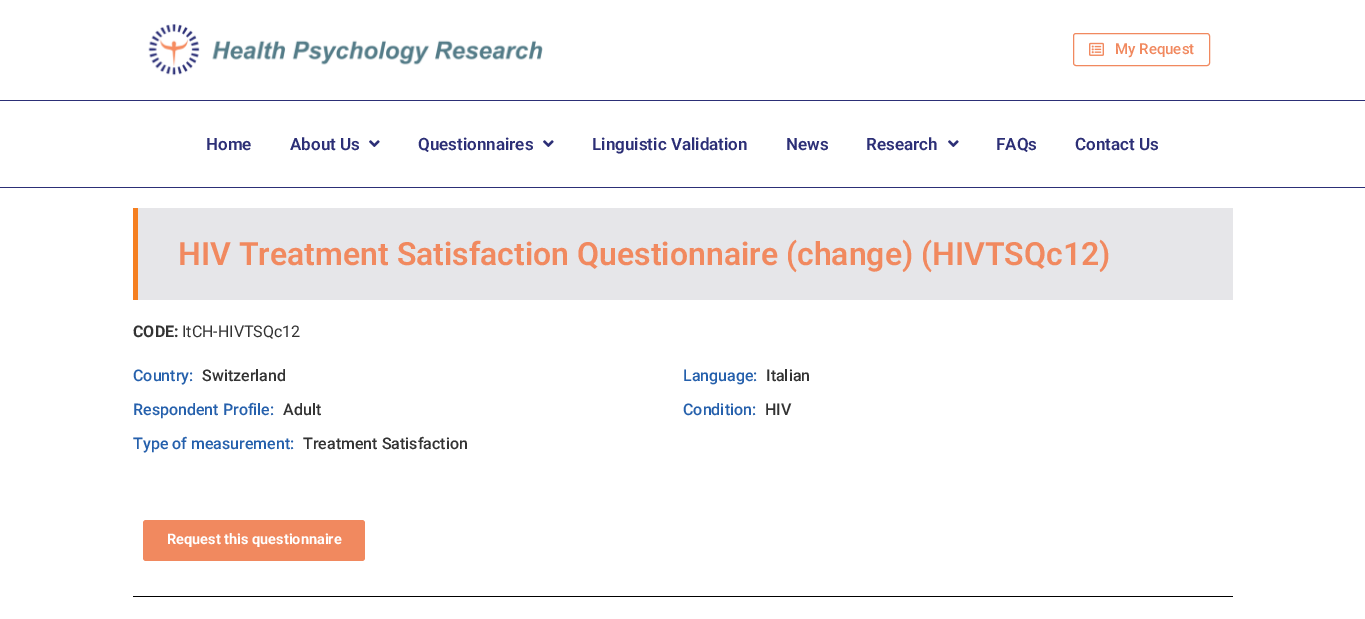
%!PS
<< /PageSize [1365 619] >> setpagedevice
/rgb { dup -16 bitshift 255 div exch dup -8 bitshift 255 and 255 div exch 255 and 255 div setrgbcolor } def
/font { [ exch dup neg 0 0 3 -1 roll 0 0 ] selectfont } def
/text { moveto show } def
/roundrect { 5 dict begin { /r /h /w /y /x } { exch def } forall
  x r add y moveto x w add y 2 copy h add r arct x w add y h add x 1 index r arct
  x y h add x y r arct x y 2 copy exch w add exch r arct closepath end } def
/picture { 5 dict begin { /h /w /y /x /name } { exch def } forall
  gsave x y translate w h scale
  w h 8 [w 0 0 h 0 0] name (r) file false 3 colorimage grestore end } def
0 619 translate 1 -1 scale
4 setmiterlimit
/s1 { /Roboto-Medium 15 font 16#F1895F rgb } def
/s2 { /Roboto-SemiBold 17 font 16#2C2F76 rgb } def
/s3 { /Roboto-SemiBold 32 font 16#F1895F rgb } def
/s4 { /Roboto-Bold 16 font 16#333333 rgb } def
/s5 { /Roboto-Regular 16 font 16#333333 rgb } def
/s6 { /Roboto-Medium 16 font 16#2560AC rgb } def
/s7 { /Roboto-Medium 16 font 16#333333 rgb } def
/s8 { /Roboto-Bold 14.5 font 16#FFFFFF rgb } def
16#FFFFFF rgb
0 0 1365 619 rectfill
16#2C2F76 rgb
0 100 1365 1 rectfill
(pic1.raw) 148 24 395 52 picture
16#F1895F rgb
1073.5 33.5 136 32 2.5 roundrect stroke
(pic2.raw) 1089 42 15 14 picture
s1
(My Request) 1115 54 text
16#2C2F76 rgb
0 187 1365 1 rectfill
s2
(Home) 206 150 text
(About Us) 290 150 text
(pic3.raw) 369 140 11 7 picture
(Questionnaires) 418 150 text
(pic3.raw) 543 140 11 7 picture
(Linguistic Validation) 592 150 text
(News) 786 150 text
(Research) 866 150 text
(pic3.raw) 948 140 11 7 picture
(FAQs) 996 150 text
(Contact Us) 1075 150 text
16#E6E6E9 rgb
138 208 1095 92 rectfill
16#F57F20 rgb
133 208 5 92 rectfill
s3
(HIV Treatment Satisfaction Questionnaire \(change\) \(HIVTSQc12\)) 178 265 text
s4
(CODE:) 133 337 text
s5
(ItCH-HIVTSQc12) 182 337 text
s6
(Country:) 133 381 text
s7
(Switzerland) 202 381 text
s6
(Language:) 683 381 text
s7
(Italian) 766 381 text
s6
(Respondent Profile:) 133 415 text
s7
(Adult) 283 415 text
s6
(Condition:) 683 415 text
s7
(HIV) 765 415 text
s6
(Type of measurement:) 133 449 text
s7
(Treatment Satisfaction) 303 449 text
16#F1895F rgb
143 520 222 41 3 roundrect fill
s8
(Request this questionnaire) 167 544 text
16#000000 rgb
133 596 1100 1 rectfill
showpage
